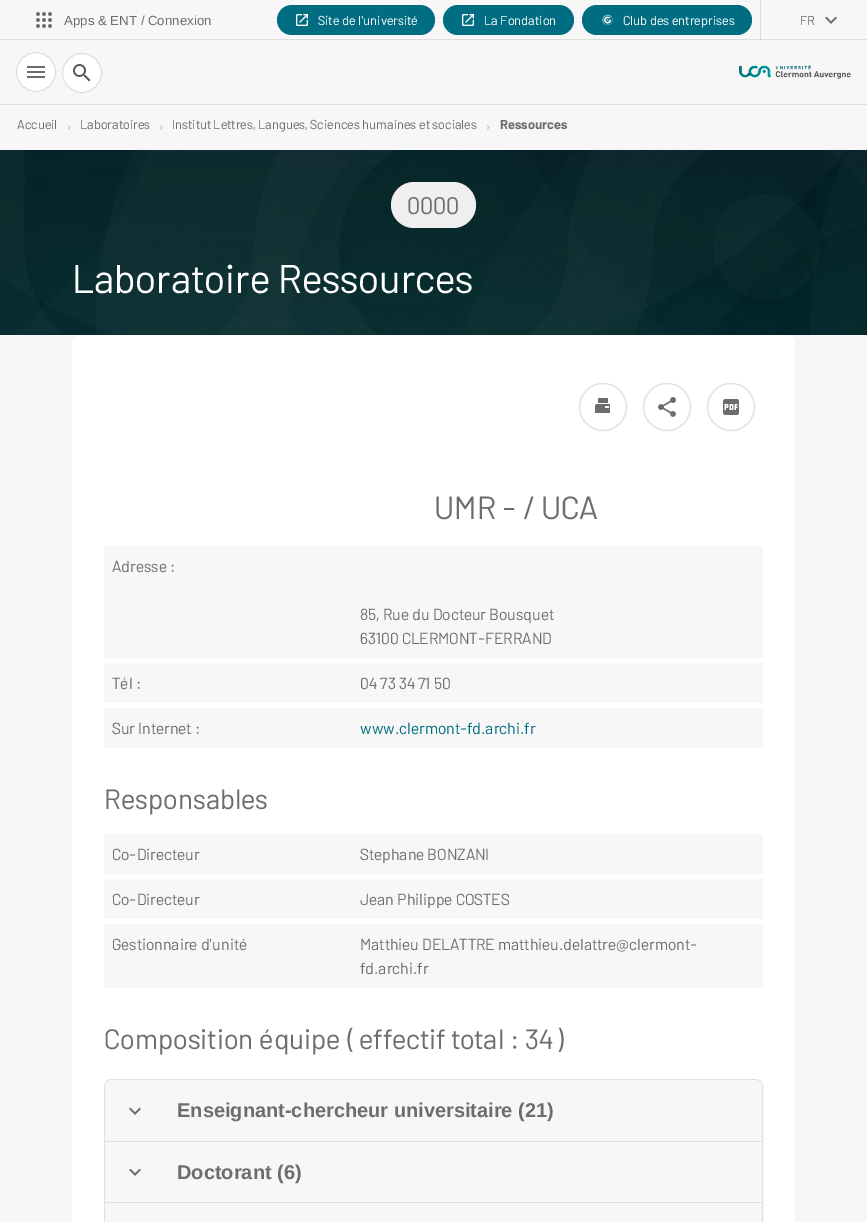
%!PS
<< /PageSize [867 1222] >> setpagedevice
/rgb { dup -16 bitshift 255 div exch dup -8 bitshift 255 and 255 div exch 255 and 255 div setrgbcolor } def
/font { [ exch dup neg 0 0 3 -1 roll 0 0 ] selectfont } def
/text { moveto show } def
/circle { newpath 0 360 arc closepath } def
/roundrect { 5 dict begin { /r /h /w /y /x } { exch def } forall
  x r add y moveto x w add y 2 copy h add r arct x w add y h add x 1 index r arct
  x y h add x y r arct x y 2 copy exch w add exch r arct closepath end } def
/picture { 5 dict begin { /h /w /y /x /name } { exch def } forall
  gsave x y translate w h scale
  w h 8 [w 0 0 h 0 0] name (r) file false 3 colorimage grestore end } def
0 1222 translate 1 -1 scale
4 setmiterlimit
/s1 { /LiberationSans-Regular 13.25 font 16#6D6D6C rgb } def
/s2 { /Barlow-Regular 13 font 16#FFFFFF rgb } def
/s3 { /Barlow-Regular 13 font 16#6D6D6C rgb } def
/s4 { /Barlow-Bold 13 font 16#6D6D6C rgb } def
/s5 { /Barlow-Regular 24 font 16#6D6D6C rgb } def
/s6 { /Barlow-Regular 40 font 16#FFFFFF rgb } def
/s7 { /Barlow-Regular 32 font 16#6D6D6C rgb } def
/s8 { /Barlow-Regular 16 font 16#6D6D6C rgb } def
/s9 { /Barlow-Regular 16 font 16#006D82 rgb } def
/s10 { /Barlow-Regular 28 font 16#6D6D6C rgb } def
/s11 { /LiberationSans-Bold 20 font 16#6D6D6C rgb } def
16#F7F7F7 rgb
0 0 867 1222 rectfill
16#DEDEDE rgb
760 0 1 40 rectfill
0 39 867 1 rectfill
16#C8C8C8 rgb
760 39 1 1 rectfill
(pic1.raw) 36 12 16 16 picture
s1
(Apps & ENT / Connexion) 64 25 text
16#006D82 rgb
277 5 158 30 15 roundrect fill
(pic2.raw) 296 14 12 12 picture
s2
(Site de l'université) 318 25 text
16#006D82 rgb
443 5 131 30 15 roundrect fill
(pic2.raw) 462 14 12 12 picture
s2
(La Fondation) 484 25 text
16#006D82 rgb
582 5 170 30 15 roundrect fill
(pic3.raw) 602 14 11 12 picture
s2
(Club des entreprises) 623 25 text
s3
(FR) 800 25 text
(pic4.raw) 825 16 12 8 picture
16#FFFFFF rgb
36 72 19.5 circle gsave fill grestore
16#DFDFDF rgb
stroke
(pic5.raw) 27 66 18 12 picture
16#FFFFFF rgb
82 73 19.5 circle gsave fill grestore
16#DFDFDF rgb
stroke
(pic6.raw) 73 64 18 18 picture
(pic7.raw) 739 64 112 15 picture
16#DEDEDE rgb
0 104 867 1 rectfill
s3
(Accueil) 17 129 text
(pic8.raw) 68 125 3 5 picture
(Laboratoires) 80 129 text
(pic8.raw) 160 125 3 5 picture
(Institut Lettres, Langues, Sciences humaines et sociales) 172 129 text
(pic8.raw) 487 125 3 5 picture
s4
(Ressources) 500 129 text
(pic9.raw) 0 150 867 185 picture
16#EFEFEF rgb
391 182 85 46 23 roundrect fill
s5
(0000) 407 214 text
s6
(Laboratoire Ressources) 72 293 text
80 335 moveto 787 335 lineto 791.5 335 795 338.5 795 343 curveto 795 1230 lineto 72 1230 lineto 72 343 lineto 72 338.5 75.5 335 80 335 curveto closepath fill
16#DFDFDF rgb
603 407 23.5 circle stroke
(pic10.raw) 595 398 15 15 picture
667 407 23.5 circle stroke
(pic11.raw) 658 397 18 20 picture
731 407 23.5 circle stroke
(pic12.raw) 723 399 16 16 picture
s7
(UMR - / UCA) 434 519 text
16#F7F7F7 rgb
104 546 659 202 rectfill
s8
(Adresse :) 112 572 text
(85, Rue du Docteur Bousquet) 360 620 text
(63100 CLERMONT-FERRAND) 360 644 text
(Tél :) 112 689 text
16#FFFFFF rgb
104 658 659 5 rectfill
s8
(04 73 34 71 50) 360 689 text
(Sur Internet :) 112 734 text
16#FFFFFF rgb
104 703 659 5 rectfill
s9
(www.clermont-fd.archi.fr) 360 734 text
s10
(Responsables) 104 809 text
16#F7F7F7 rgb
104 834 659 154 rectfill
s8
(Co-Directeur) 112 860 text
(Stephane BONZANI) 360 860 text
(Co-Directeur) 112 905 text
16#FFFFFF rgb
104 874 659 5 rectfill
s8
(Jean Philippe COSTES) 360 905 text
(Gestionnaire d'unité) 112 950 text
16#FFFFFF rgb
104 919 659 5 rectfill
s8
(Matthieu DELATTRE matthieu.delattre@clermont-) 360 950 text
(fd.archi.fr) 360 974 text
s10
(Composition équipe \( effectif total : 34 \)) 104 1049 text
16#DFDFDF rgb
104.5 1079.5 658 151 7.5 roundrect stroke
16#F7F7F7 rgb
112 1080 moveto 755 1080 lineto 759 1080 762 1083 762 1087 curveto 762 1142 lineto 105 1142 lineto 105 1087 lineto 105 1083 108 1080 112 1080 curveto closepath fill
(pic4.raw) 129 1107 12 8 picture
s11
(Enseignant-chercheur universitaire \(21\)) 177 1117 text
16#F7F7F7 rgb
105 1142 657 60 rectfill
(pic13.raw) 129 1169 12 7 picture
16#DFDFDF rgb
105 1141 657 1 rectfill
s11
(Doctorant \(6\)) 177 1179 text
16#F7F7F7 rgb
105 1203 657 19 rectfill
16#DFDFDF rgb
105 1202 657 1 rectfill
showpage
